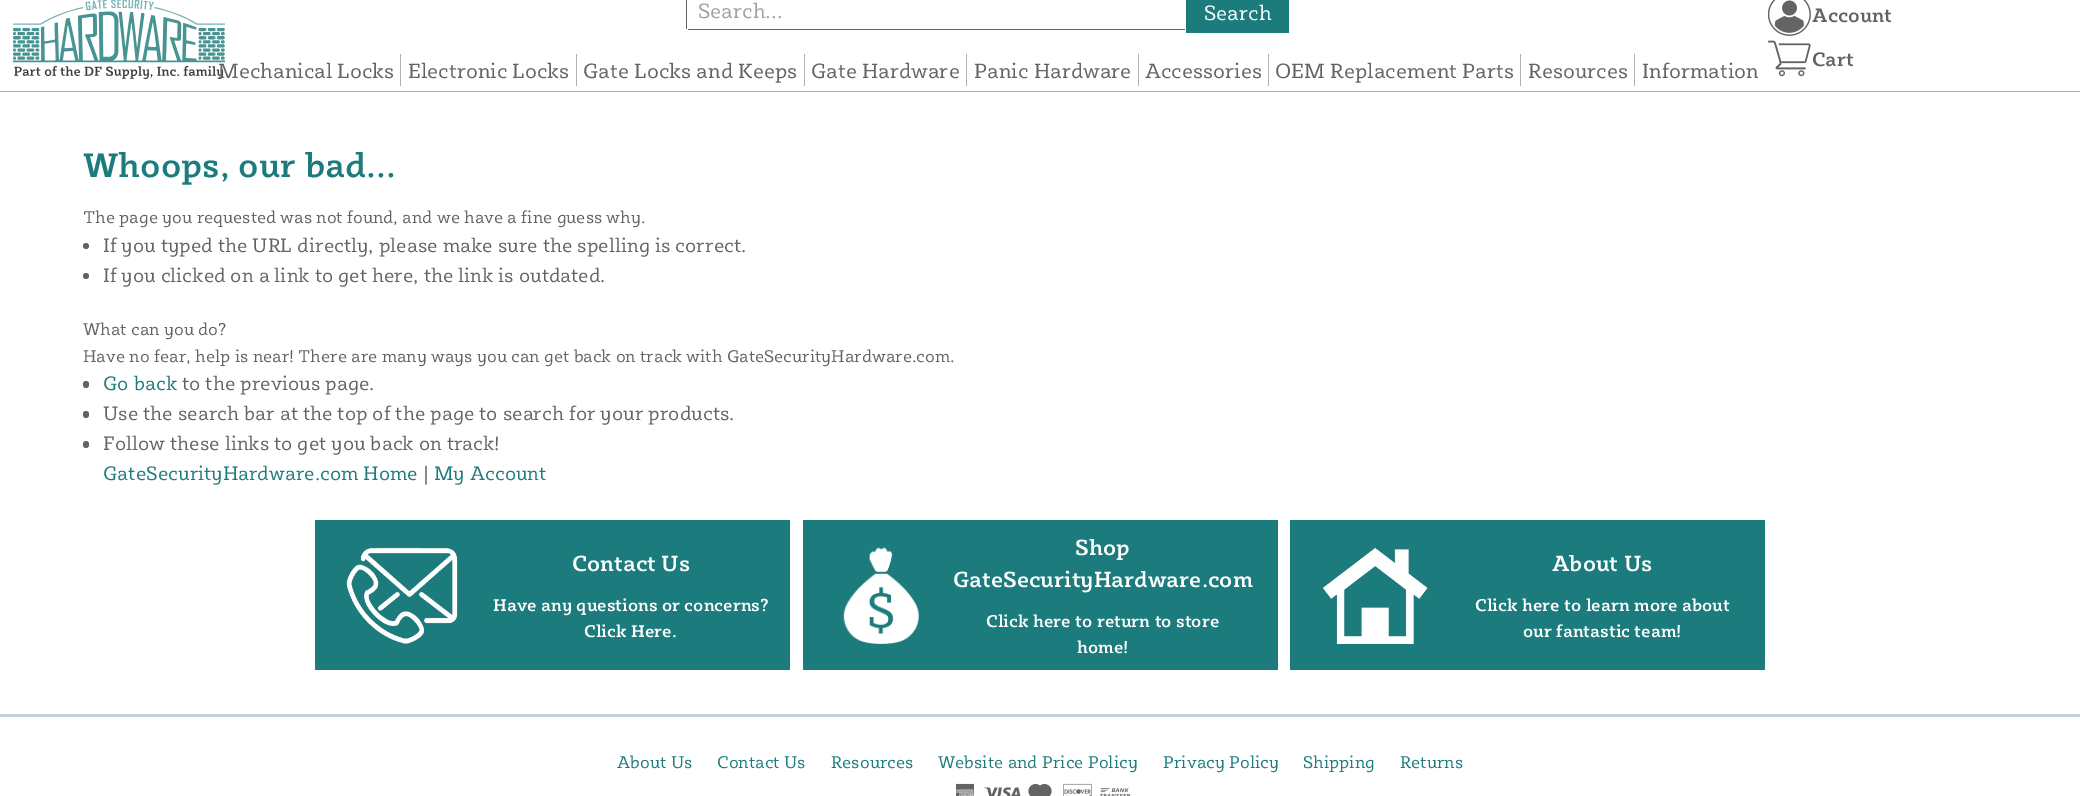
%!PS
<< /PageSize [2080 796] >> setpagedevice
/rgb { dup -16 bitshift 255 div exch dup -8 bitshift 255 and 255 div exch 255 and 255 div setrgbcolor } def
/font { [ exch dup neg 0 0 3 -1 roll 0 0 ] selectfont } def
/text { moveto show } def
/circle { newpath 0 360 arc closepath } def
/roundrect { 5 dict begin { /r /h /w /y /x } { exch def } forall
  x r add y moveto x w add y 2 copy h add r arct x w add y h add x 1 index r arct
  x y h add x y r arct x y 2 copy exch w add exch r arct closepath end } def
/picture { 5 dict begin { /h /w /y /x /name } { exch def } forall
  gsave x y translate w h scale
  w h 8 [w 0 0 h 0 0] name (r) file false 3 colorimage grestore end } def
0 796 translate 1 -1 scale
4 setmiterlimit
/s1 { /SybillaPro-Regular 21.25 font 16#A0A0A0 rgb } def
/s2 { /SybillaPro-Regular 21.25 font 16#FFFFFF rgb } def
/s3 { /SybillaPro-Medium 20 font 16#636363 rgb } def
/s4 { /SybillaPro-Regular 21.25 font 16#636363 rgb } def
/s5 { /SybillaPro-Medium 35 font 16#1C7B7C rgb } def
/s6 { /SybillaPro-Regular 17.5 font 16#636363 rgb } def
/s7 { /SybillaPro-Regular 20 font 16#636363 rgb } def
/s8 { /SybillaPro-Regular 20 font 16#1C7B7C rgb } def
/s9 { /SybillaPro-Medium 22.5 font 16#FFFFFF rgb } def
/s10 { /SybillaPro-Medium 17.5 font 16#FFFFFF rgb } def
/s11 { /SybillaPro-Regular 17.5 font 16#1C7B7C rgb } def
16#FFFFFF rgb
0 0 2080 796 rectfill
16#B1B1B1 rgb
0 91 2080 1 rectfill
(pic1.raw) 13 0 212 79 picture
16#636363 rgb
688 29 497 1 rectfill
686 0 1 29 rectfill
s1
(Search...) 698 18 text
gsave 1186 0 moveto 1289 0 lineto 1289 33 lineto 1186 33 lineto closepath clip newpath
<< /ShadingType 2 /ColorSpace /DeviceRGB /Coords [1002 89 1268 -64] /Extend [true true] /Function << /FunctionType 3 /Domain [0 1] /Functions [<< /FunctionType 2 /Domain [0 1] /C0 [0.11 0.482 0.486] /C1 [0.11 0.482 0.486] /N 1 >> << /FunctionType 2 /Domain [0 1] /C0 [0.11 0.482 0.486] /C1 [0.141 0.42 0.561] /N 1 >> << /FunctionType 2 /Domain [0 1] /C0 [0.141 0.42 0.561] /C1 [0.11 0.482 0.486] /N 1 >> << /FunctionType 2 /Domain [0 1] /C0 [0.11 0.482 0.486] /C1 [0.11 0.482 0.486] /N 1 >>] /Bounds [0.13 0.2 0.27] /Encode [0 1 0 1 0 1 0 1] >> >> shfill grestore
s2
(Search) 1204 20 text
(pic2.raw) 1768 0 43 36 picture
s3
(Account) 1812 22 text
(pic3.raw) 1768 40 43 37 picture
(Cart) 1812 66 text
16#B1B1B1 rgb
400 54 1 32 rectfill
s4
(Mechanical Locks) 218 78 text
16#B1B1B1 rgb
576 54 1 32 rectfill
s4
(Electronic Locks) 408 78 text
16#B1B1B1 rgb
804 54 1 32 rectfill
s4
(Gate Locks and Keeps) 583 78 text
16#B1B1B1 rgb
966 54 1 32 rectfill
s4
(Gate Hardware) 811 78 text
16#B1B1B1 rgb
1138 54 1 32 rectfill
s4
(Panic Hardware) 974 78 text
16#B1B1B1 rgb
1268 54 1 32 rectfill
s4
(Accessories) 1145 78 text
16#B1B1B1 rgb
1520 54 1 32 rectfill
s4
(OEM Replacement Parts) 1275 78 text
16#B1B1B1 rgb
1634 54 1 32 rectfill
s4
(Resources) 1528 78 text
(Information) 1642 78 text
s5
(Whoops, our bad...) 83 177 text
s6
(The page you requested was not found, and we have a fine guess why.) 83 223 text
86 246 3 circle fill
s7
(If you typed the URL directly, please make sure the spelling is correct.) 103 252 text
86 276 3 circle fill
(If you clicked on a link to get here, the link is outdated.) 103 282 text
s6
(What can you do?) 83 335 text
(Have no fear, help is near! There are many ways you can get back on track with GateSecurityHardware.com.) 83 362 text
83 381 6 7 3 roundrect fill
s8
(Go back) 103 390 text
s7
(to the previous page.) 182 390 text
83 411 6 7 3 roundrect fill
(Use the search bar at the top of the page to search for your products.) 103 420 text
83 441 6 7 3 roundrect fill
(Follow these links to get you back on track!) 103 450 text
s8
(GateSecurityHardware.com Home) 103 480 text
s7
(|) 423 480 text
s8
(My Account) 434 480 text
315 520 475 150 rectfill
(pic4.raw) 346 547 112 97 picture
s9
(Contact Us) 572 571 text
s10
(Have any questions or concerns?) 493 611 text
(Click Here.) 584 637 text
16#1C7B7C rgb
803 520 475 150 rectfill
(pic5.raw) 843 547 76 97 picture
s9
(Shop) 1075 555 text
(GateSecurityHardware.com) 953 587 text
s10
(Click here to return to store) 986 627 text
(home!) 1077 653 text
16#1C7B7C rgb
1290 520 475 150 rectfill
(pic6.raw) 1322 547 106 97 picture
s9
(About Us) 1552 571 text
s10
(Click here to learn more about) 1475 611 text
(our fantastic team!) 1523 637 text
16#C2D4D7 rgb
0 714 2080 3 rectfill
s11
(About Us) 617 768 text
(Contact Us) 717 768 text
(Resources) 831 768 text
(Website and Price Policy) 938 768 text
(Privacy Policy) 1163 768 text
(Shipping) 1303 768 text
(Returns) 1400 768 text
(pic7.raw) 956 783 18 13 picture
(pic8.raw) 984 787 37 9 picture
(pic9.raw) 1028 784 24 12 picture
(pic10.raw) 1063 783 29 13 picture
(pic11.raw) 1100 788 30 8 picture
showpage
